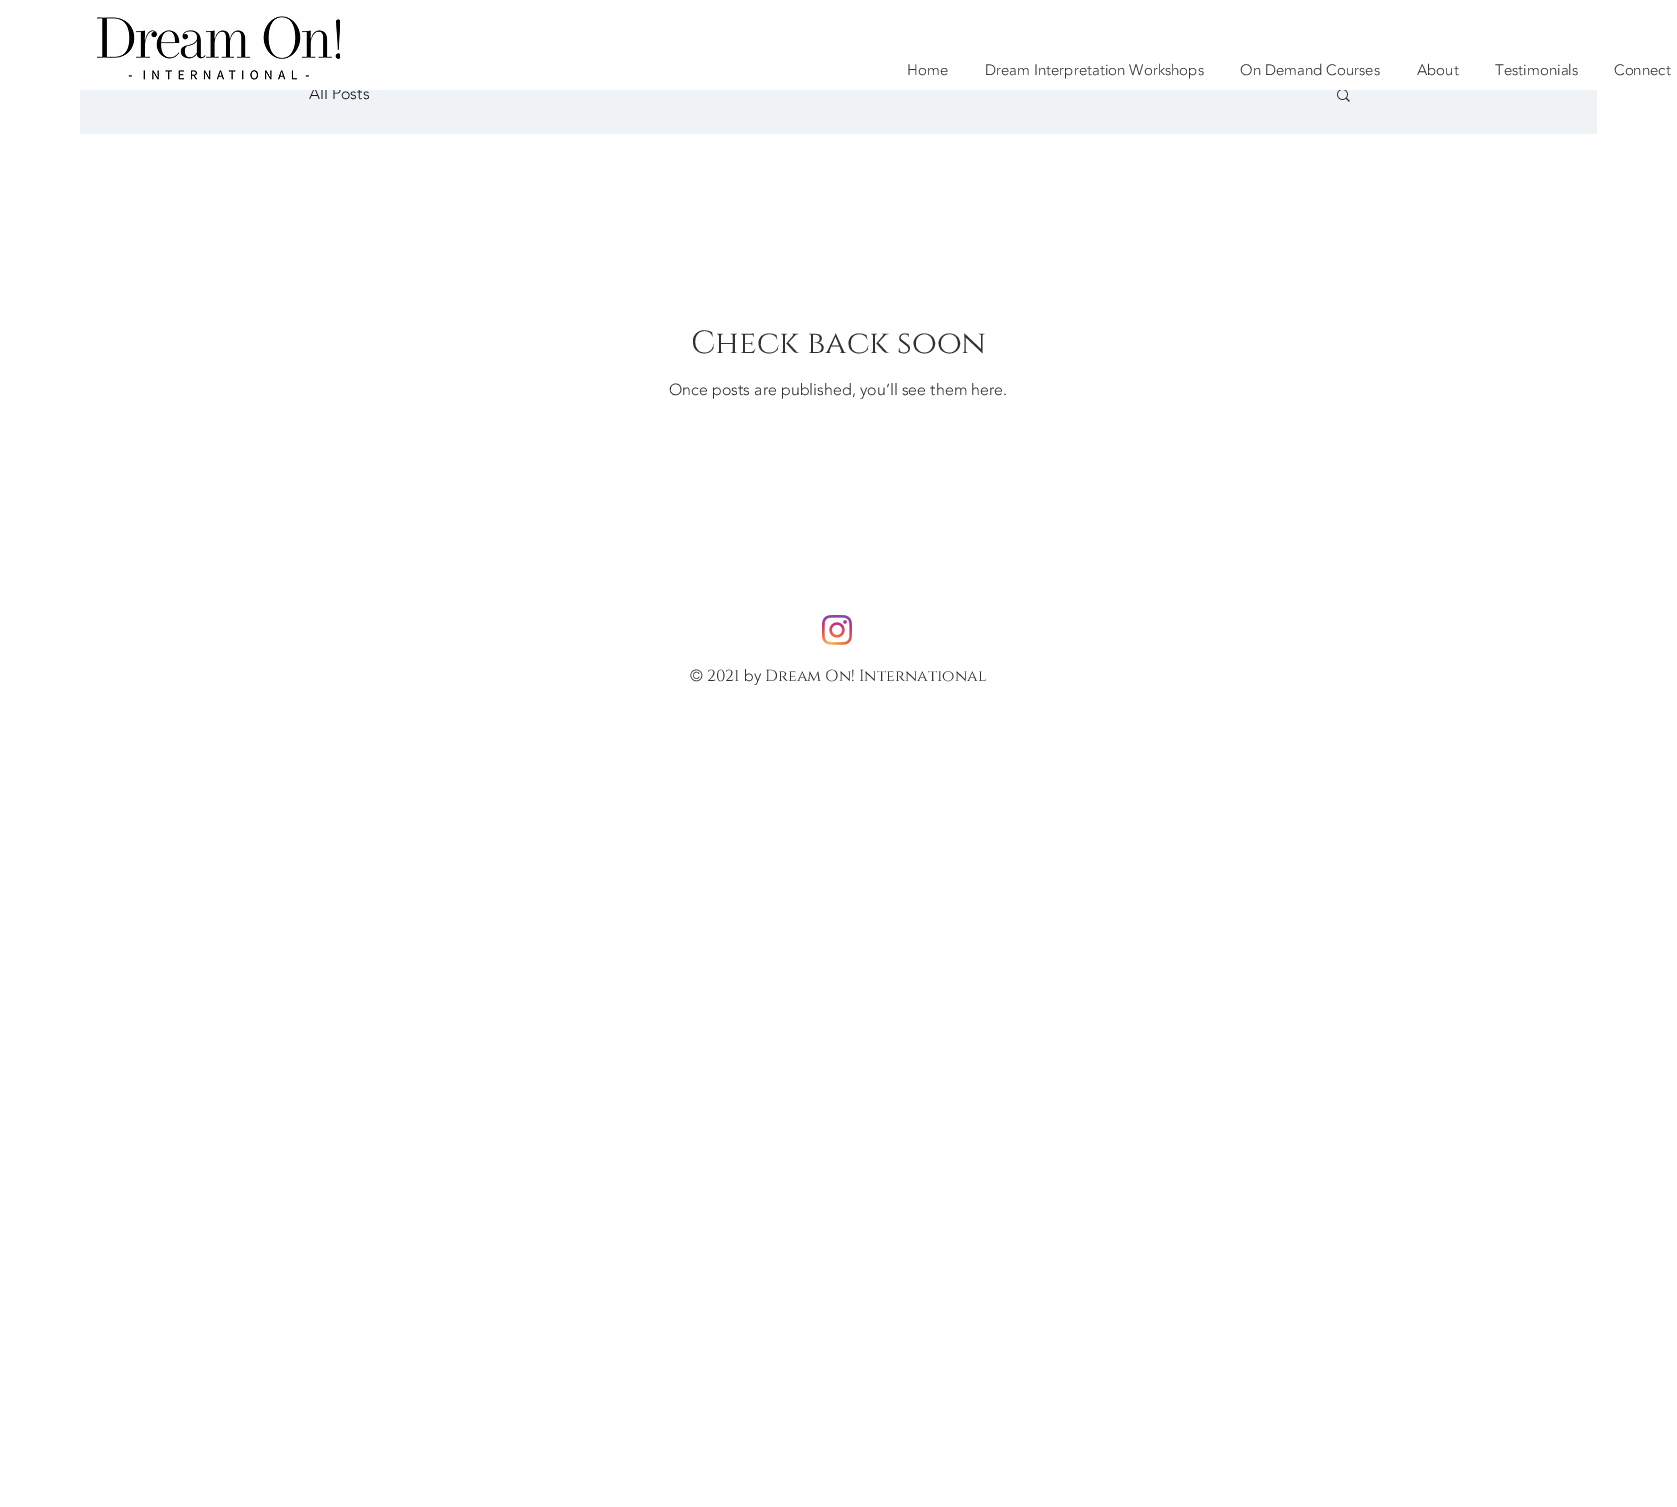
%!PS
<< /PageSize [1677 1507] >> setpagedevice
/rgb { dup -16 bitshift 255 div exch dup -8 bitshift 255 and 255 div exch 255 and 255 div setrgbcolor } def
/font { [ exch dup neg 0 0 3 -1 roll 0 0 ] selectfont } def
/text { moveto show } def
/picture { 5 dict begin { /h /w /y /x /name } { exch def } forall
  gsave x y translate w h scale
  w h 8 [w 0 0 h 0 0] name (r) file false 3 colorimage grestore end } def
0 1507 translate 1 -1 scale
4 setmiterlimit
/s1 { /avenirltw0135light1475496-Light 15 font 16#303131 rgb } def
/s2 { /avenirltw0135light1475496-Light 16 font 16#141D27 rgb } def
/s3 { /Cinzel-Regular 32 font 16#303131 rgb } def
/s4 { /avenirltw0135light1475496-Light 16 font 16#303131 rgb } def
/s5 { /Cinzel-Regular 16 font 16#303131 rgb } def
16#FFFFFF rgb
0 0 1677 1507 rectfill
(pic1.raw) 97 16 243 64 picture
s1
(Home) 907 75 text
(Dream Interpretation Workshops) 985 75 text
(On Demand Courses) 1240 75 text
(About) 1417 75 text
(Testimonials) 1495 75 text
(Connect) 1614 75 text
16#F0F3F6 rgb
80 90 1517 44 rectfill
s2
(All Posts) 309 99 text
16#FFFFFF rgb
312 86 48 4 rectfill
(pic2.raw) 1337 90 13 12 picture
s3
(Check back soon) 691 353 text
s4
(Once posts are published, you’ll see them here.) 669 395 text
(pic3.raw) 822 615 30 30 picture
(©) 690 681 text
s5
(2021) 707 681 text
s4
(by) 744 681 text
s5
(Dream On! International) 765 681 text
showpage
